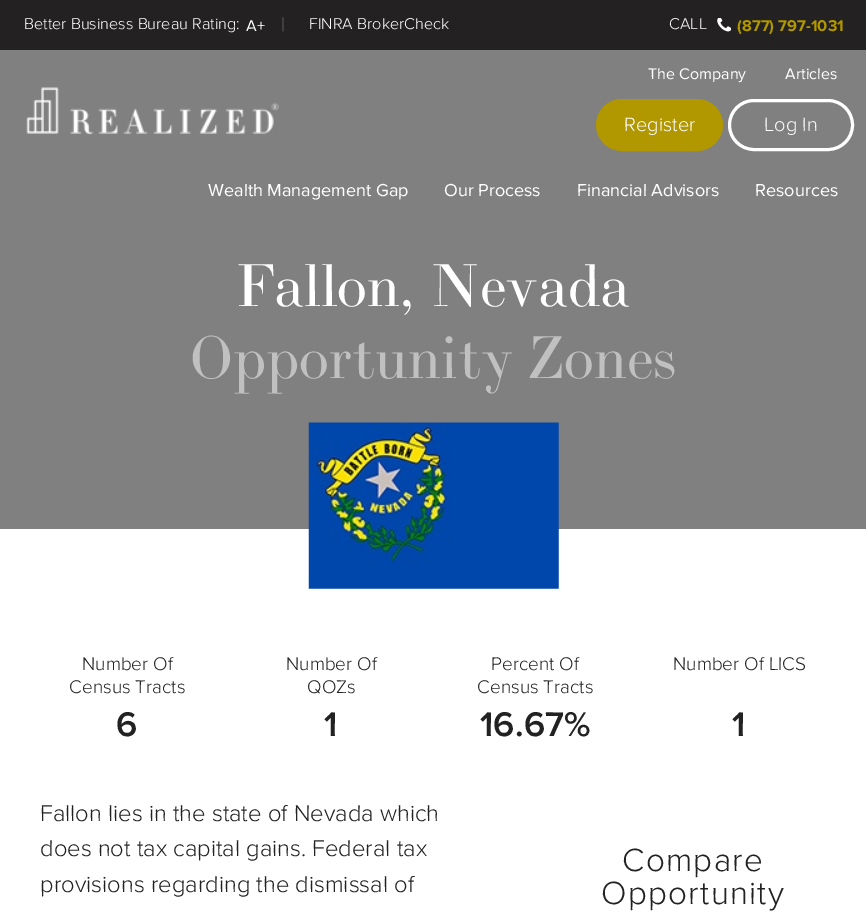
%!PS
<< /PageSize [866 914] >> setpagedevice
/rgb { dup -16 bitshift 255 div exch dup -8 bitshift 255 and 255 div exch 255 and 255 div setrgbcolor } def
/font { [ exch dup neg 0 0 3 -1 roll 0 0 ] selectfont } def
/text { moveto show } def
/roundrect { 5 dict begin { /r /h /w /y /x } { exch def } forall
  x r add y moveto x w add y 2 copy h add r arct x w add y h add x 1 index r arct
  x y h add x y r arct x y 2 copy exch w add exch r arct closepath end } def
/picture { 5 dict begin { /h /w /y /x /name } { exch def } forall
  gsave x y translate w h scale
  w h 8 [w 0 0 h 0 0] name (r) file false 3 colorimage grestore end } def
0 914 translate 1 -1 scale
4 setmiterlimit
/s1 { /ProximaNova-Light 16.25 font 16#FFFFFF rgb } def
/s2 { /ProximaNova-Regular 16.25 font 16#FFFFFF rgb } def
/s3 { /ProximaNova-Thin 20 font 16#919090 rgb } def
/s4 { /ProximaNova-Bold 16.25 font 16#B19700 rgb } def
/s5 { /ProximaNova-Regular 16 font 16#FFFFFF rgb } def
/s6 { /ProximaNova-Light 20 font 16#FFFFFF rgb } def
/s7 { /ProximaNova-Regular 18 font 16#FFFFFF rgb } def
/s8 { /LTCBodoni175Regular-Regular 59.5 font 16#FFFFFF rgb } def
/s9 { /LTCBodoni175Regular-Regular 59.5 font 16#C0C0C0 rgb } def
/s10 { /ProximaNova-Light 19 font 16#232222 rgb } def
/s11 { /ProximaNova-SemiBold 35.5 font 16#232222 rgb } def
/s12 { /ProximaNova-Light 23.75 font 16#232222 rgb } def
16#FFFFFF rgb
0 0 866 914 rectfill
16#232121 rgb
0 0 866 50 rectfill
s1
(Better Business Bureau Rating:) 24 29 text
s2
(A+) 246 31 text
s3
(|) 281 31 text
s1
(FINRA BrokerCheck) 309 29 text
(CALL) 669 29 text
(pic1.raw) 717 18 14 14 picture
s4
(\(877\) 797-1031) 737 31 text
16#808080 rgb
0 50 866 479 rectfill
(pic2.raw) 26 87 253 48 picture
s5
(The Company) 648 79 text
(Articles) 785 79 text
16#B19700 rgb
597.5 100.5 124 49 24.5 roundrect gsave fill grestore
3 setlinewidth
stroke
s6
(Register) 624 131 text
729.5 100.5 123 49 24.5 roundrect stroke
(Log In) 764 131 text
s7
(Wealth Management Gap) 208 196 text
(Our Process) 444 196 text
(Financial Advisors) 577 196 text
(Resources) 755 196 text
s8
(Fallon, Nevada) 236 306 text
s9
(Opportunity Zones) 190 378 text
(pic3.raw) 308 422 251 167 picture
s10
(Number Of) 82 670 text
(Census Tracts) 69 693 text
s11
(6) 116 736 text
s10
(Number Of) 286 670 text
(QOZs) 307 693 text
s11
(1) 324 736 text
s10
(Percent Of) 491 670 text
(Census Tracts) 477 693 text
s11
(16.67%) 480 736 text
s10
(Number Of LICS) 673 670 text
s11
(1) 732 736 text
s12
(Fallon lies in the state of Nevada which) 40 821 text
(does not tax capital gains. Federal tax) 40 856 text
(provisions regarding the dismissal of) 40 892 text
/ProximaNova-Light 33.25 font
622 871 moveto 1.25 0 (Compare) ashow
601 904 moveto 1.25 0 (Opportunity) ashow
showpage
